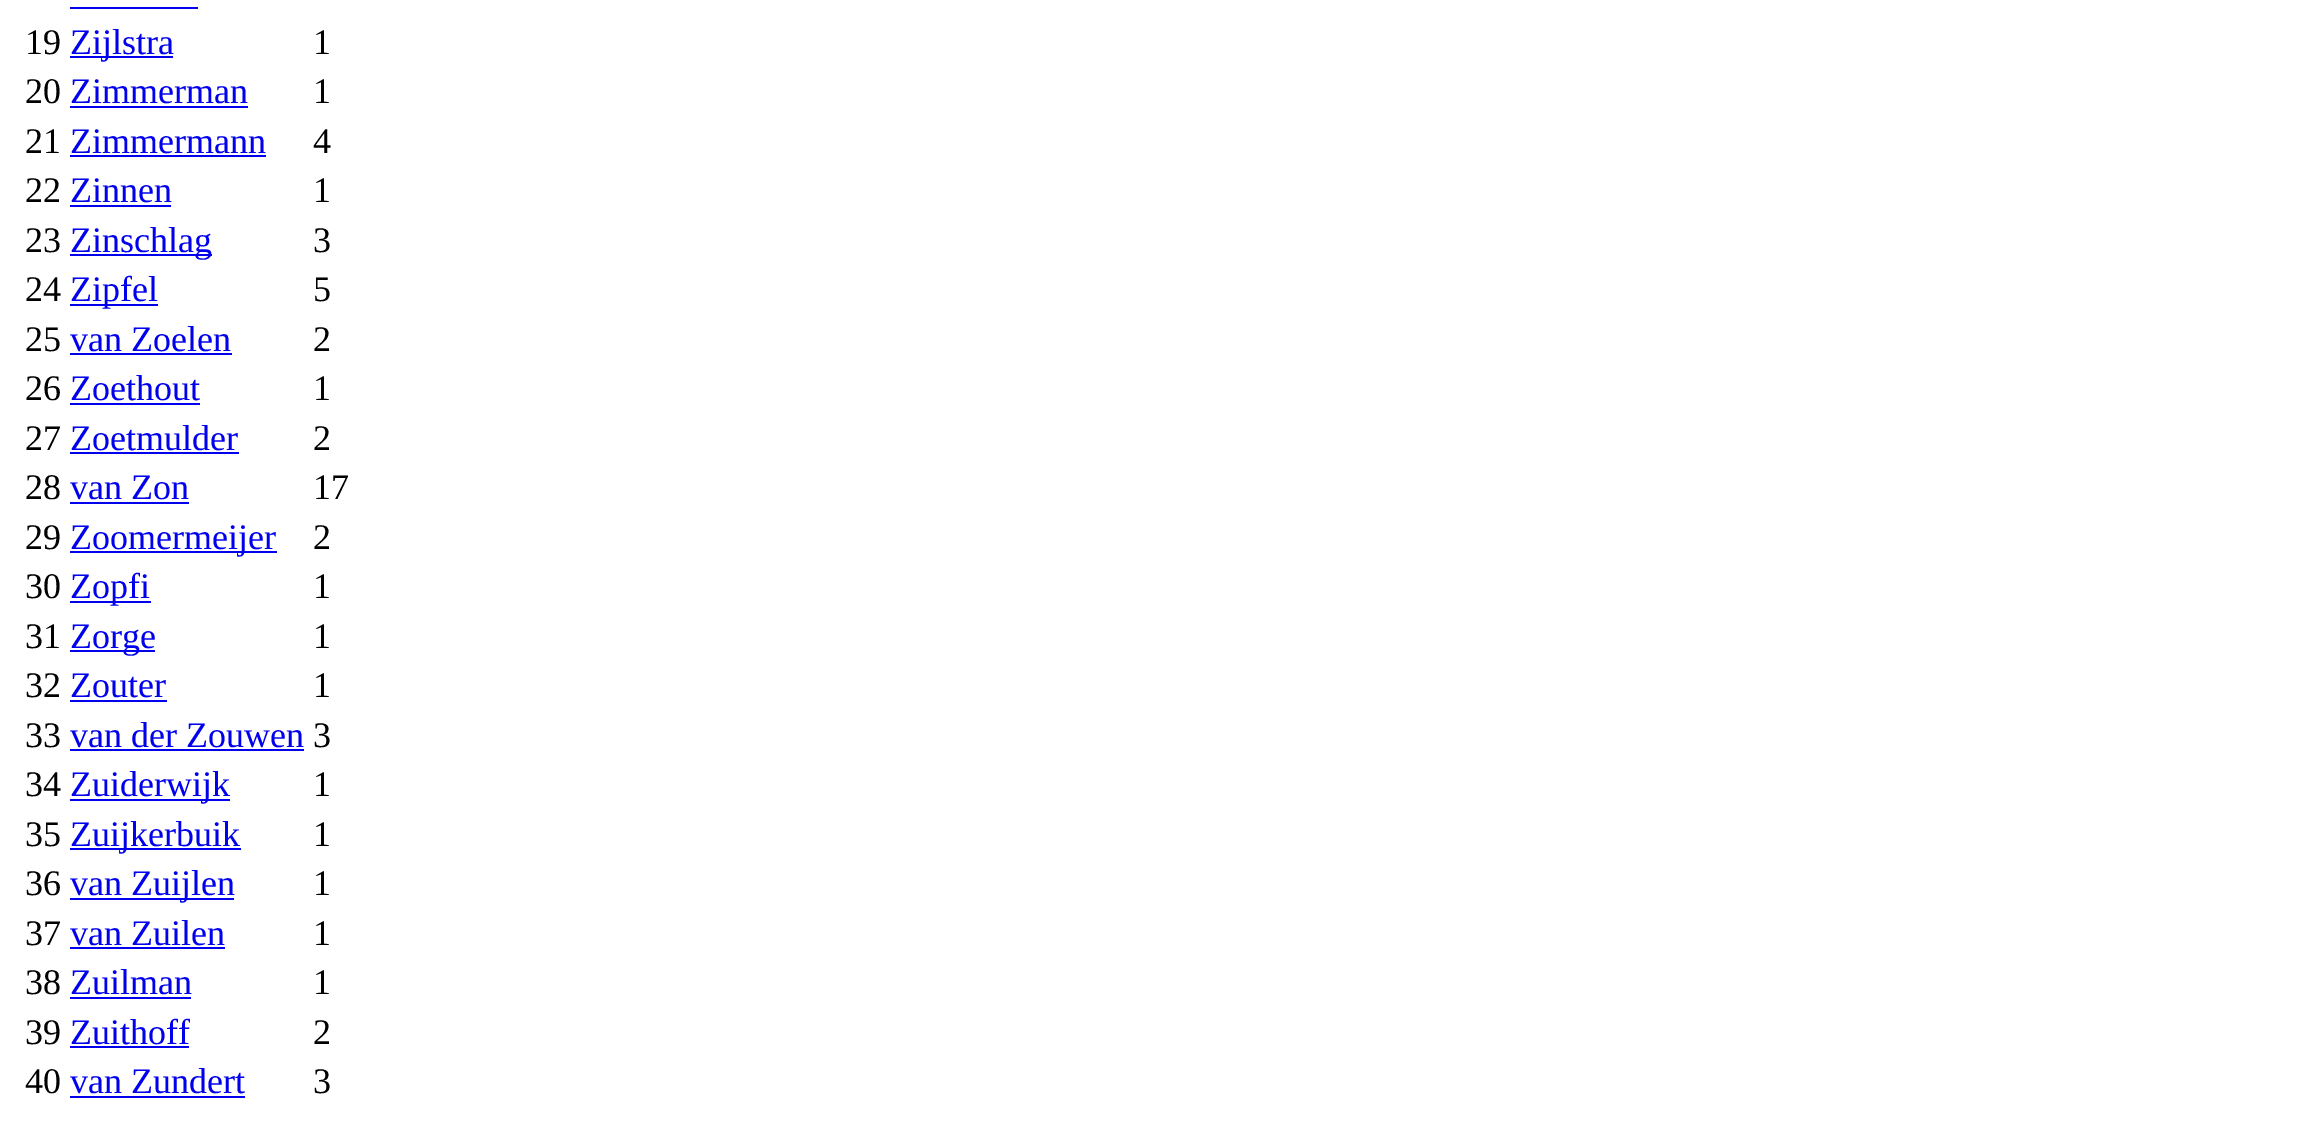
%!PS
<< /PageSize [2311 1130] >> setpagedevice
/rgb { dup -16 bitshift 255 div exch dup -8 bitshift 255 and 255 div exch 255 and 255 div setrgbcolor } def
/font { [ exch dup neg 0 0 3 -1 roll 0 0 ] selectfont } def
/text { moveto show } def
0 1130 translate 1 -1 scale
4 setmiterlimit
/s1 { /LiberationSerif-Regular 36 font 16#000000 rgb } def
/s2 { /LiberationSerif-Regular 36 font 16#0000EE rgb } def
16#FFFFFF rgb
0 0 2311 1130 rectfill
16#0000EE rgb
70 7 128 2 rectfill
s1
(19) 25 54 text
16#0000EE rgb
70 56 103 2 rectfill
(Zijlstra) 70 54 text
s1
(1) 313 54 text
(20) 25 103 text
s2
(Zimmerman) 70 103 text
70 106 178 2 rectfill
s1
(1) 313 103 text
(21) 25 153 text
s2
(Zimmermann) 70 153 text
70 155 196 2 rectfill
s1
(4) 313 153 text
(22) 25 202 text
s2
(Zinnen) 70 202 text
70 205 101 2 rectfill
s1
(1) 313 202 text
(23) 25 252 text
16#0000EE rgb
70 254 142 2 rectfill
(Zinschlag) 70 252 text
s1
(3) 313 252 text
(24) 25 301 text
16#0000EE rgb
70 304 88 2 rectfill
(Zipfel) 70 301 text
s1
(5) 313 301 text
(25) 25 351 text
s2
(van Zoelen) 70 351 text
70 353 162 2 rectfill
s1
(2) 313 351 text
(26) 25 400 text
s2
(Zoethout) 70 400 text
70 403 130 2 rectfill
s1
(1) 313 400 text
(27) 25 450 text
s2
(Zoetmulder) 70 450 text
70 452 169 2 rectfill
s1
(2) 313 450 text
(28) 25 499 text
s2
(van Zon) 70 499 text
70 502 119 2 rectfill
s1
(17) 313 499 text
(29) 25 549 text
16#0000EE rgb
70 551 207 2 rectfill
(Zoomermeijer) 70 549 text
s1
(2) 313 549 text
(30) 25 598 text
16#0000EE rgb
70 601 81 2 rectfill
(Zopfi) 70 598 text
s1
(1) 313 598 text
(31) 25 648 text
16#0000EE rgb
70 650 85 2 rectfill
(Zorge) 70 648 text
s1
(1) 313 648 text
(32) 25 697 text
s2
(Zouter) 70 697 text
70 700 97 2 rectfill
s1
(1) 313 697 text
(33) 25 747 text
s2
(van der Zouwen) 70 747 text
70 749 234 2 rectfill
s1
(3) 313 747 text
(34) 25 796 text
16#0000EE rgb
70 799 160 2 rectfill
(Zuiderwijk) 70 796 text
s1
(1) 313 796 text
(35) 25 846 text
16#0000EE rgb
70 848 171 2 rectfill
(Zuijkerbuik) 70 846 text
s1
(1) 313 846 text
(36) 25 895 text
16#0000EE rgb
70 898 164 2 rectfill
(van Zuijlen) 70 895 text
s1
(1) 313 895 text
(37) 25 945 text
s2
(van Zuilen) 70 945 text
70 947 155 2 rectfill
s1
(1) 313 945 text
(38) 25 994 text
s2
(Zuilman) 70 994 text
70 997 121 2 rectfill
s1
(1) 313 994 text
(39) 25 1044 text
s2
(Zuithoff) 70 1044 text
70 1046 119 2 rectfill
s1
(2) 313 1044 text
(40) 25 1093 text
s2
(van Zundert) 70 1093 text
70 1096 175 2 rectfill
s1
(3) 313 1093 text
showpage
